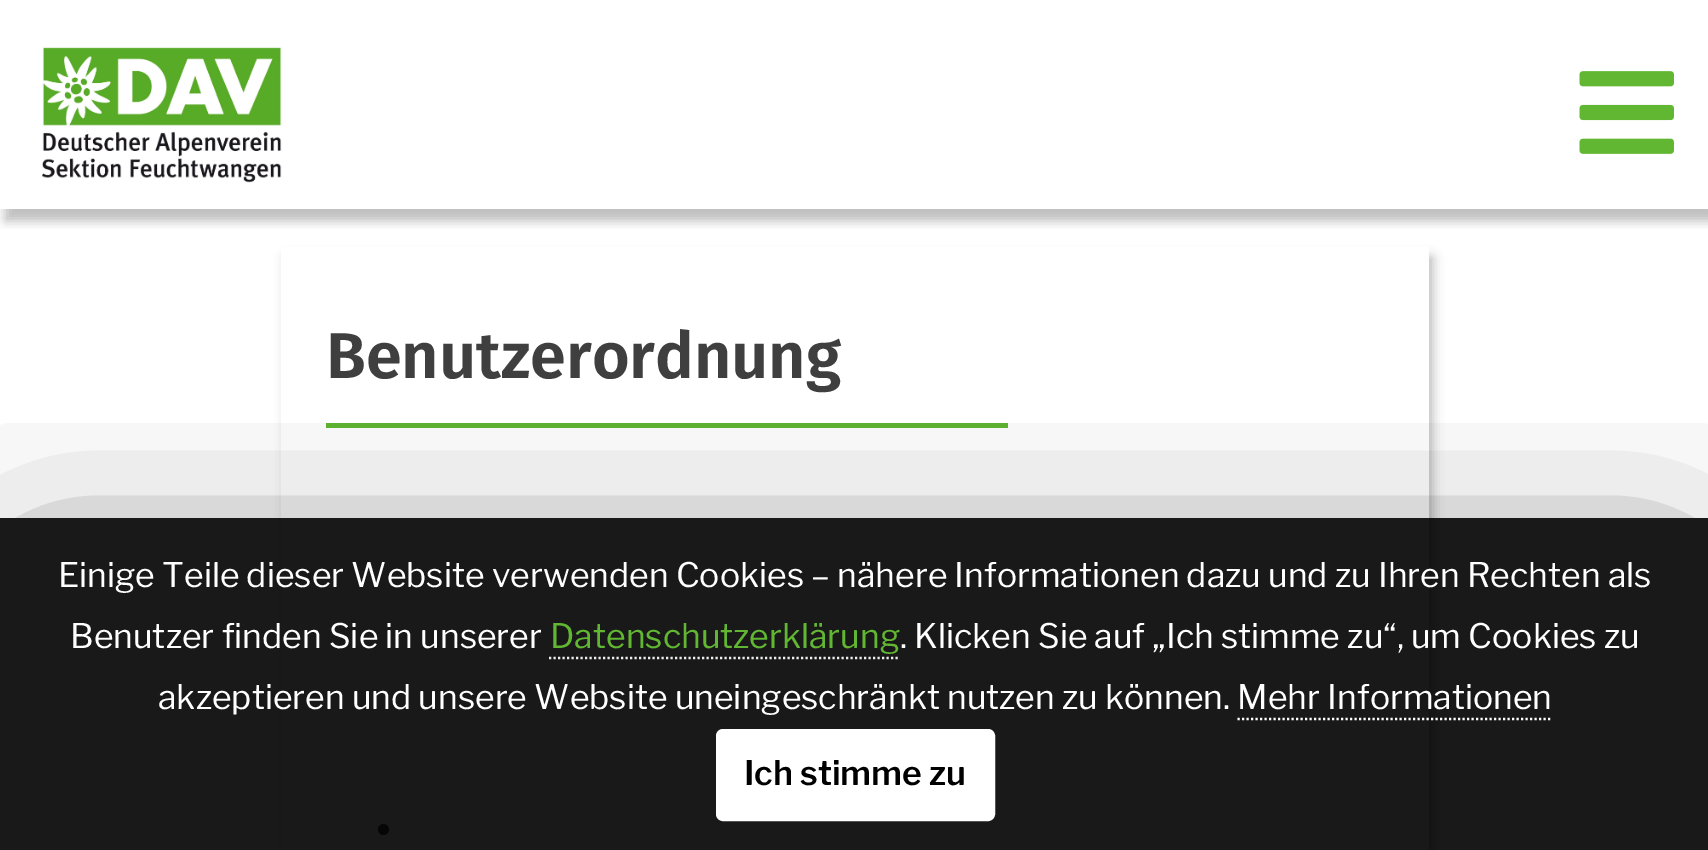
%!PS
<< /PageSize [1708 850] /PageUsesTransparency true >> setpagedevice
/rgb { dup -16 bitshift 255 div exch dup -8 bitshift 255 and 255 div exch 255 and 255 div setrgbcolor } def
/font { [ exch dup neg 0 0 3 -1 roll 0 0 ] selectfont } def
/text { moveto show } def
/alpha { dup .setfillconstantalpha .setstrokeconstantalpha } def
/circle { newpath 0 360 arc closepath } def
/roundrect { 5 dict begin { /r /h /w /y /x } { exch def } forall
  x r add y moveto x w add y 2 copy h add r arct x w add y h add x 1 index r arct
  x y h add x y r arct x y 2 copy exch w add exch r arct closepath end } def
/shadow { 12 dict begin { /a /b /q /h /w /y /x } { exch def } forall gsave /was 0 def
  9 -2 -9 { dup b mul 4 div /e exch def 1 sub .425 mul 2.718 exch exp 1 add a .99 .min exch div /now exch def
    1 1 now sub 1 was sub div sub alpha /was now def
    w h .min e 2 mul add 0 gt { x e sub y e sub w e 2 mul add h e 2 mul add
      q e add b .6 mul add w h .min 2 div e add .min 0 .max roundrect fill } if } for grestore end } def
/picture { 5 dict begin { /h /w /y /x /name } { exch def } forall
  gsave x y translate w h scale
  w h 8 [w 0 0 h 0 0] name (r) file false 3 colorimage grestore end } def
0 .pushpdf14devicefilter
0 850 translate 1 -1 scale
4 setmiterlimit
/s1 { /FiraSans-SemiBold 64.75 font 16#3F3F3F rgb } def
/s2 { /LibreFranklin-Regular 33.75 font 16#FFFFFF rgb } def
/s3 { /LibreFranklin-Regular 33.75 font 16#61B732 rgb } def
/s4 { /LibreFranklin-SemiBold 33.75 font 16#000000 rgb } def
16#FFFFFF rgb
0 0 1708 850 rectfill
gsave
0 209 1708 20 rectclip
16#000000 rgb
5 11 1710 210 0 5.5 0.25 shadow
grestore
(pic1.raw) 42 47 240 136 picture
(pic2.raw) 1579 71 95 83 picture
16#000000 rgb
286 257 1147 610 0 5.5 0.25 shadow
16#FFFFFF rgb
281 247 1148 603 rectfill
16#61B732 rgb
326 423 682 5 rectfill
s1
(Benutzerordnung) 326 378 text
383.5 829.5 5.5 circle fill
gsave
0 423 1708 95 rectclip
16#000000 rgb
45 608 1620 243 0 90 1 shadow
grestore
0.9 alpha
16#000000 rgb
0 518 1708 332 rectfill
1 alpha
s2
(Einige Teile dieser Website verwenden Cookies – nähere Informationen dazu und zu Ihren Rechten als) 58 587 text
(Benutzer finden Sie in unserer) 70 648 text
s3
(Datenschutzerklärung) 550 648 text
16#EEEEEE rgb
2.2 setlinewidth
[2.25 2.25] 0 setdash
549 658 moveto 900 658 lineto stroke
s2
(. Klicken Sie auf „Ich stimme zu“, um Cookies zu) 900 648 text
(akzeptieren und unsere Website uneingeschränkt nutzen zu können. Mehr Informationen) 158 709 text
1237.5 719 moveto 1552.5 719 lineto stroke
717 730 277 90 6 roundrect gsave fill grestore
2 setlinewidth
[] 0 setdash
stroke
s4
(Ich stimme zu) 744 785 text
.poppdf14devicefilter showpage
